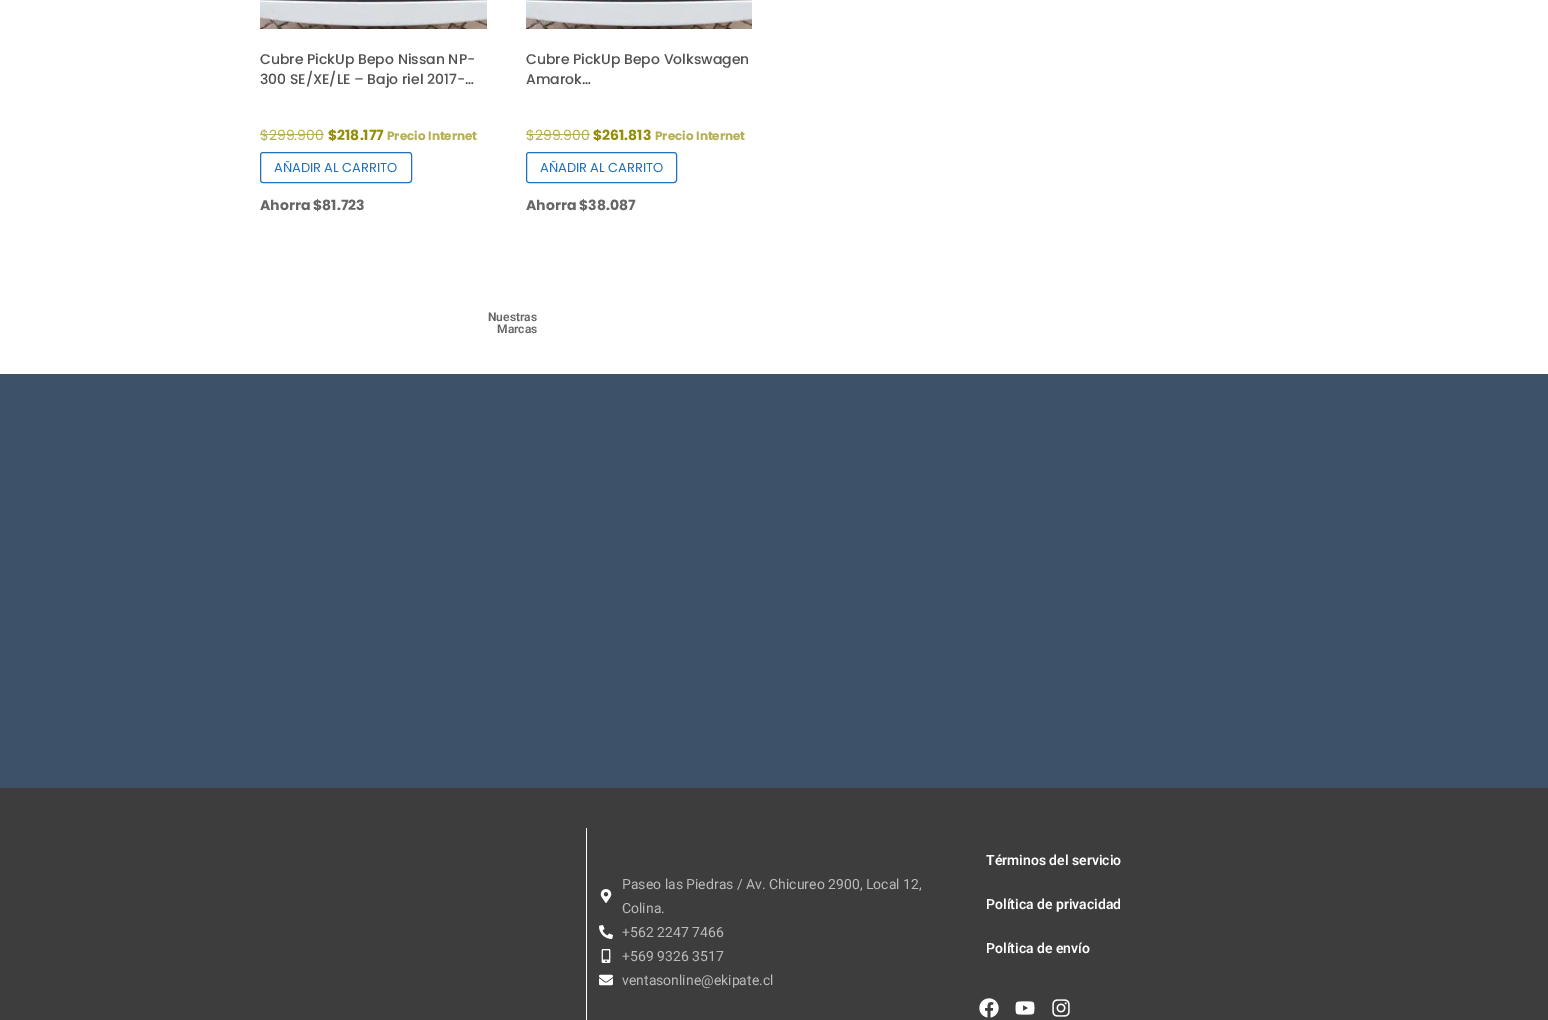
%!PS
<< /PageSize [1548 1020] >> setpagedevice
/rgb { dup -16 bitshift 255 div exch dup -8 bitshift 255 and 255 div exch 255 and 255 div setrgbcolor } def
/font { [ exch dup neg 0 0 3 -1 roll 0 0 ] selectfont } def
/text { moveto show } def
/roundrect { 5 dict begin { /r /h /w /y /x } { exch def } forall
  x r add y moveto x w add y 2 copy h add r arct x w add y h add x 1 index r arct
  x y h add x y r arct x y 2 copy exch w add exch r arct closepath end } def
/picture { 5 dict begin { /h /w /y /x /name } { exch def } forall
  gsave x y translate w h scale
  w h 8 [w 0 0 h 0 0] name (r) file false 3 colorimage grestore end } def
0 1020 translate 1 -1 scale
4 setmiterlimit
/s1 { /Poppins-Medium 14 font 16#515151 rgb } def
/s2 { /Poppins-Regular 14 font 16#B5B053 rgb } def
/s3 { /Poppins-Bold 14 font 16#958E09 rgb } def
/s4 { /Poppins-Bold 12 font 16#B5B053 rgb } def
/s5 { /Poppins-Regular 13 font 16#1E73BE rgb } def
/s6 { /Poppins-Bold 14 font 16#666666 rgb } def
/s7 { /Roboto-SemiBold 12 font 16#666666 rgb } def
/s8 { /Roboto-Regular 14 font 16#BBBBBB rgb } def
/s9 { /Roboto-SemiBold 14 font 16#FFFFFF rgb } def
16#FFFFFF rgb
0 0 1548 1020 rectfill
(pic1.raw) 260 0 227 29 picture
s1
(Cubre PickUp Bepo Nissan NP-) 260 64 text
(300 SE/XE/LE – Bajo riel 2017-…) 260 84 text
s2
($299.900) 260 140 text
260 134 64 1 rectfill
s3
($218.177) 328 140 text
s4
(Precio Internet) 387 140 text
16#1E73BE rgb
260.5 152.5 151 30 2.5 roundrect stroke
s5
(AÑADIR AL CARRITO) 274 172 text
s6
(Ahorra $81.723) 260 210 text
(pic2.raw) 526 0 226 29 picture
s1
(Cubre PickUp Bepo Volkswagen) 526 64 text
(Amarok…) 526 84 text
s2
($299.900) 526 140 text
526 134 64 1 rectfill
s3
($261.813) 593 140 text
s4
(Precio Internet) 655 140 text
16#1E73BE rgb
526.5 152.5 150 30 2.5 roundrect stroke
s5
(AÑADIR AL CARRITO) 540 172 text
s6
(Ahorra $38.087) 526 210 text
s7
(Nuestras) 488 321 text
(Marcas) 497 333 text
16#3D5169 rgb
0 374 1548 414 rectfill
16#3D3D3D rgb
0 788 1548 232 rectfill
16#FFFFFF rgb
586 828 1 192 rectfill
(pic3.raw) 600 889 12 14 picture
s8
(Paseo las Piedras / Av. Chicureo 2900, Local 12,) 622 889 text
(Colina.) 622 913 text
(pic4.raw) 599 925 14 14 picture
(+562 2247 7466) 622 937 text
(pic5.raw) 601 949 10 14 picture
(+569 9326 3517) 622 961 text
(pic6.raw) 599 974 14 12 picture
(ventasonline@ekipate.cl) 622 985 text
s9
(Términos del servicio) 986 865 text
(Política de privacidad) 986 909 text
(Política de envío) 986 953 text
(pic7.raw) 979 998 20 20 picture
(pic8.raw) 1015 1001 20 14 picture
(pic9.raw) 1052 999 18 18 picture
showpage
